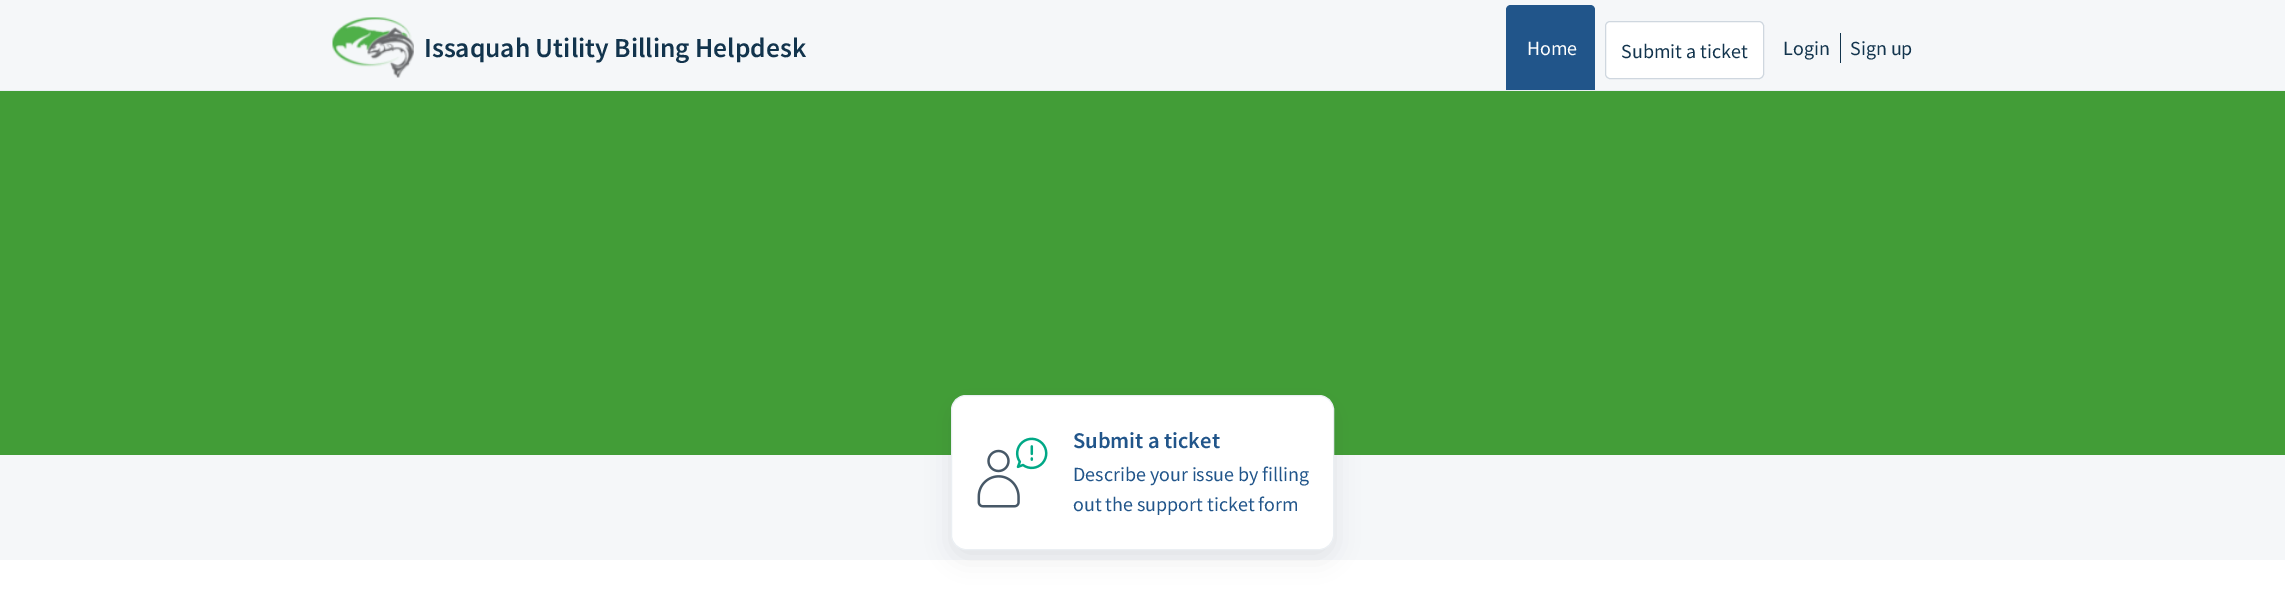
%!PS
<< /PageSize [2285 603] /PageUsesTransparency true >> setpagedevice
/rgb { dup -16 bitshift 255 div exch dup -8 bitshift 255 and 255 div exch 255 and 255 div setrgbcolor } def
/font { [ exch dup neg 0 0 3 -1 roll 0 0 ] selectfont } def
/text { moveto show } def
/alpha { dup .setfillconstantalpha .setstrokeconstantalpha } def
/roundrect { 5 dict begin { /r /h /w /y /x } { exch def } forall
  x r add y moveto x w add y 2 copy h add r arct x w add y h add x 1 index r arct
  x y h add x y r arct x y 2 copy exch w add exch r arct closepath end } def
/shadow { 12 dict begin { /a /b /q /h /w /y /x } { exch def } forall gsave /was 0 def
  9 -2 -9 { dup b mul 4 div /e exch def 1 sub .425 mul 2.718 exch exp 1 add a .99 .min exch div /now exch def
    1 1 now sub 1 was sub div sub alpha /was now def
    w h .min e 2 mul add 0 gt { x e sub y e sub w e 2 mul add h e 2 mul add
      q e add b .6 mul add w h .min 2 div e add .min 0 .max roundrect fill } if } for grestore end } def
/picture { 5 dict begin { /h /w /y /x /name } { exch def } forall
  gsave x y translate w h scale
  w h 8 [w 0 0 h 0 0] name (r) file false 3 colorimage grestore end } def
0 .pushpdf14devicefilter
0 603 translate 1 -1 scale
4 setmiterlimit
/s1 { /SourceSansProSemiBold-SemiBold 27.5 font 16#12344D rgb } def
/s2 { /SourceSansPro-Regular 20 font 16#FFFFFF rgb } def
/s3 { /SourceSansPro-Regular 20 font 16#12344D rgb } def
/s4 { /SourceSansProSemiBold-SemiBold 22.5 font 16#21558A rgb } def
/s5 { /SourceSansPro-Regular 20 font 16#21558A rgb } def
16#F5F7F9 rgb
0 0 2285 603 rectfill
16#EBEFF3 rgb
0 90 2285 1 rectfill
(pic1.raw) 332 17 82 61 picture
s1
(Issaquah Utility Billing Helpdesk) 424 57 text
16#21558A rgb
1511 5 moveto 1590 5 lineto 1593 5 1595 7 1595 10 curveto 1595 90 lineto 1506 90 lineto 1506 10 lineto 1506 7 1508 5 1511 5 curveto closepath fill
s2
(Home) 1527 55 text
1605.5 21.5 158 57 4.5 roundrect gsave fill grestore
16#CFD7DF rgb
stroke
s3
(Submit a ticket) 1621 58 text
(Login) 1783 55 text
1840 33 1 30 rectfill
(Sign up) 1850 55 text
16#429D37 rgb
0 91 2285 364 rectfill
16#FFFFFF rgb
0 560 2285 43 rectfill
16#27313A rgb
951 403 383 155 15 12 0.1 shadow
16#FFFFFF rgb
951.5 395.5 382 154 14.5 roundrect gsave fill grestore
16#EBEFF3 rgb
stroke
(pic2.raw) 977 437 71 71 picture
s4
(Submit a ticket) 1073 448 text
s5
(Describe your issue by filling) 1073 481 text
(out the support ticket form) 1073 511 text
.poppdf14devicefilter showpage
